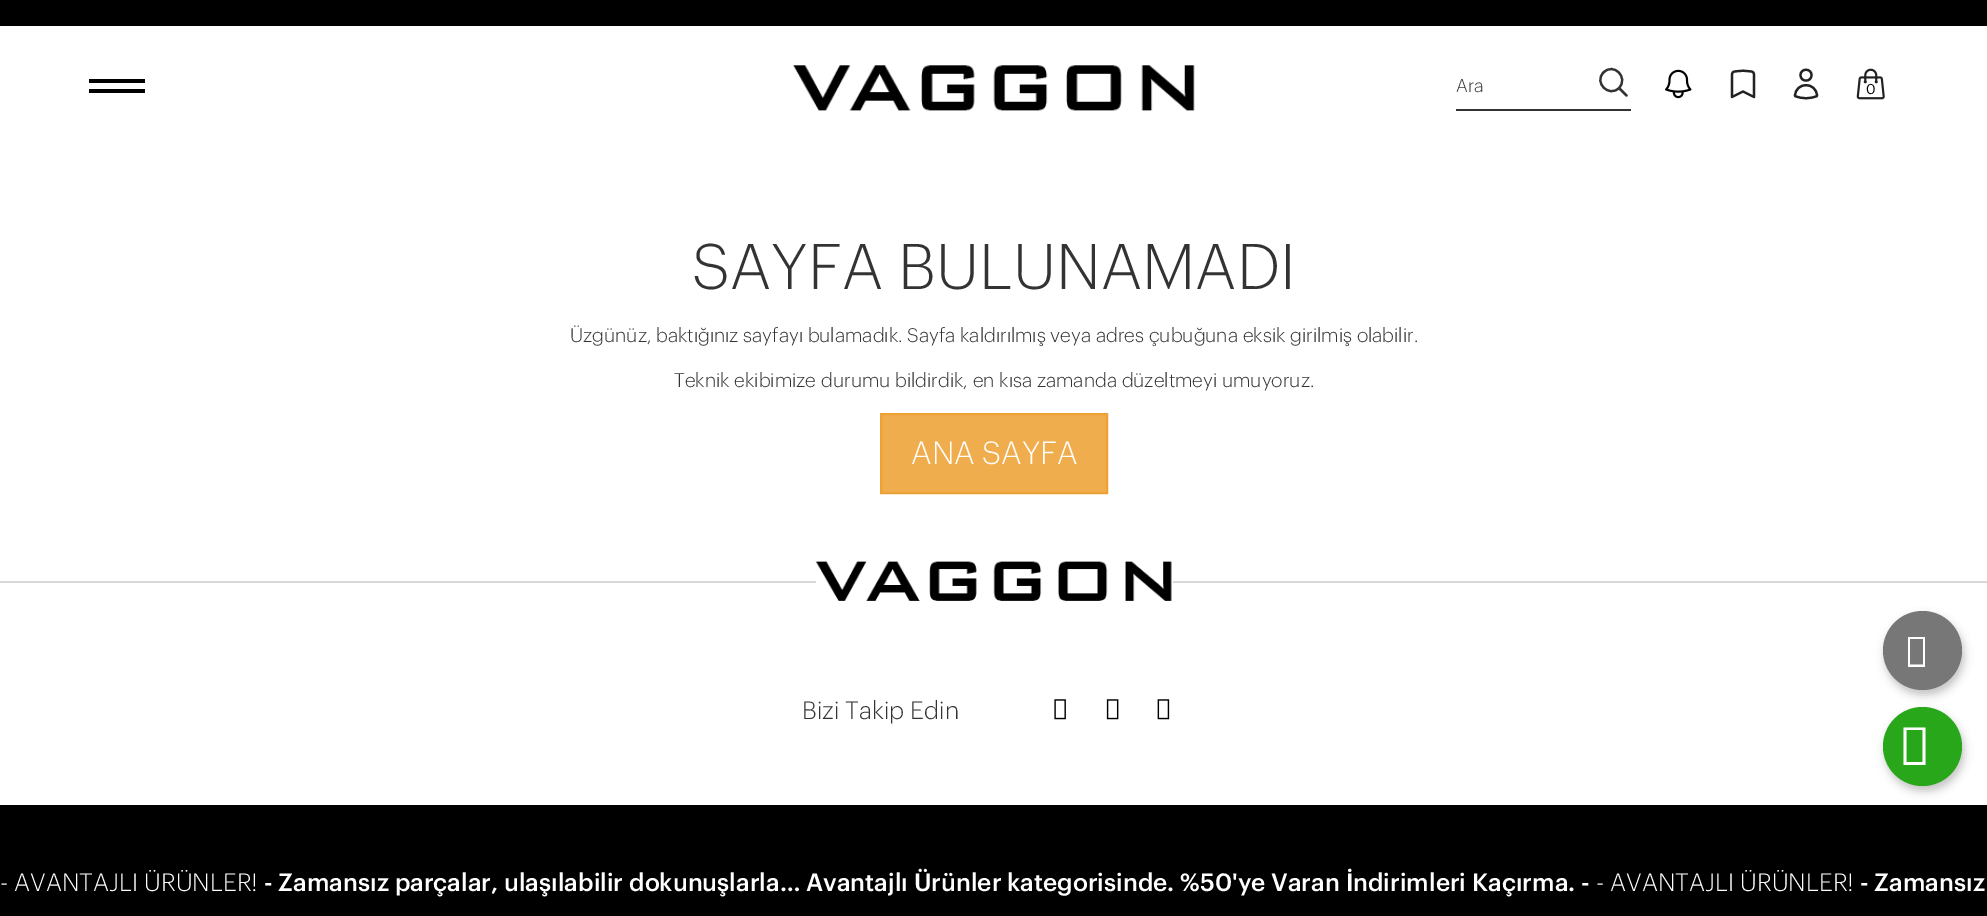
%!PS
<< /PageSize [1987 916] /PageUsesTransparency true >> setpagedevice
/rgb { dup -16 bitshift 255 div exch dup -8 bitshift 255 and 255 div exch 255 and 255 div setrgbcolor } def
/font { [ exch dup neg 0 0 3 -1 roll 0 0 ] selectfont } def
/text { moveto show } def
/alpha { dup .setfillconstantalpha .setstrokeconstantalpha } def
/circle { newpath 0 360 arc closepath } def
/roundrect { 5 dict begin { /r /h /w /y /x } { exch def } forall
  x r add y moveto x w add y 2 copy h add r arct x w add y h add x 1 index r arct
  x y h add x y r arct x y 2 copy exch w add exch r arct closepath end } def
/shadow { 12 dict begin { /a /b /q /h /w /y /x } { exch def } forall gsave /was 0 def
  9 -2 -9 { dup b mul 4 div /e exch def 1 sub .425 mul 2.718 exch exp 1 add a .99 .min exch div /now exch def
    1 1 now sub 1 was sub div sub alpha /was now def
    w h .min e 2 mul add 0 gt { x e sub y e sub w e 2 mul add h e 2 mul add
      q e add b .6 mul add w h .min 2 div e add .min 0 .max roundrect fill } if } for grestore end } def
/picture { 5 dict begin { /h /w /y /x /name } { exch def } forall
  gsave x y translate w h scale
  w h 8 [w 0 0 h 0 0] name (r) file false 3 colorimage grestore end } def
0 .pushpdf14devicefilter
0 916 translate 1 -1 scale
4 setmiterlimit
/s1 { /Graphik-Light 18 font 16#333333 rgb } def
/s2 { /Graphik-Regular 14 font 16#000000 rgb } def
/s3 { /Graphik-Light 63 font 16#333333 rgb } def
/s4 { /Graphik-Light 19.25 font 16#333333 rgb } def
/s5 { /Graphik-Light 31.5 font 16#FFFFFF rgb } def
/s6 { /Graphik-Light 24.5 font 16#333333 rgb } def
/s7 { /Graphik-Light 24.5 font 16#FFFFFF rgb } def
/s8 { /Graphik-Medium 24.5 font 16#FFFFFF rgb } def
16#FFFFFF rgb
0 0 1987 916 rectfill
16#000000 rgb
0 0 1987 26 rectfill
89 79 56 4 rectfill
89 89 56 4 rectfill
(pic1.raw) 792 65 403 46 picture
16#333333 rgb
1456 109 175 2 rectfill
s1
(Ara) 1456 92 text
2.2 setlinewidth
1 setlinecap
1 setlinejoin
1626.5 95.5 moveto 1619 88 lineto 1619 88 moveto 1629 77.5 1613.5 62 1603.5 72.5 curveto 1593.5 82.5 1609 98 1619 88 curveto closepath stroke
(pic2.raw) 1665 69 27 30 picture
16#222222 rgb
1751 71.5 moveto 1753 71.5 1754 73 1754 74.5 curveto 1754 97 lineto 1743 91.5 lineto 1732 97 lineto 1732 74.5 lineto 1732 73 1733 71.5 1735 71.5 curveto 1740.5 70.5 1745.5 70.5 1751 71.5 curveto closepath stroke
1811.5 75 moveto 1811.5 82.5 1800.5 82.5 1800.5 75 curveto 1800.5 68 1811.5 68 1811.5 75 curveto closepath 1795 96 moveto 1795.5 81.5 1816.5 81.5 1817 96 curveto 1810 99 1802 99 1795 96 curveto closepath stroke
(pic3.raw) 1856 68 29 32 picture
s2
(0) 1866 94 text
s3
(SAYFA BULUNAMADI) 692 289 text
s4
(Üzgünüz, baktığınız sayfayı bulamadık. Sayfa kaldırılmış veya adres çubuğuna eksik girilmiş olabilir.) 570 342 text
(Teknik ekibimize durumu bildirdik, en kısa zamanda düzeltmeyi umuyoruz.) 674 387 text
16#F0AD4E rgb
881 414 moveto 1107 414 lineto 1107 493 lineto 881 493 lineto closepath gsave fill grestore
16#EEA236 rgb
2 setlinewidth
0 setlinecap
0 setlinejoin
stroke
s5
(ANA SAYFA) 911 464 text
16#000000 rgb
0 805 1987 111 rectfill
1885 712 79 79 39.5 4.5 0.24 shadow
16#29A71A rgb
1922.5 746.5 39.5 circle fill
16#000000 rgb
1885 616 79 79 39.5 4.5 0.24 shadow
16#777777 rgb
1922.5 650.5 39.5 circle fill
16#FFFFFF rgb
1908 667 moveto 1908 637 lineto 1925 637 lineto 1925 667 lineto closepath 1910 664.5 moveto 1923 664.5 lineto 1923 639 lineto 1910 639 lineto closepath fill
16#D7D7D7 rgb
0 581 1987 2 rectfill
16#FFFFFF rgb
816 581 357 2 rectfill
(pic4.raw) 815 561 357 40 picture
s6
(Bizi Takip Edin) 802 719 text
(pic5.raw) 1054 699 12 21 picture
(pic6.raw) 1106 699 13 21 picture
(pic7.raw) 1157 699 13 21 picture
16#FFFFFF rgb
1903.5 765 moveto 1903.5 727.5 lineto 1925.5 727.5 lineto 1925.5 765 lineto closepath 1906.5 762 moveto 1922.5 762 lineto 1922.5 730 lineto 1906.5 730 lineto closepath fill
(- AVANTAJLI ÜRÜNLER!) 0 891 text
s8
(- Zamansız parçalar, ulaşılabilir dokunuşlarla… Avantajlı Ürünler kategorisinde. %50'ye Varan İndirimleri Kaçırma. -) 264 891 text
s7
(- AVANTAJLI ÜRÜNLER!) 1596 891 text
s8
(- Zamansız) 1860 891 text
.poppdf14devicefilter showpage
